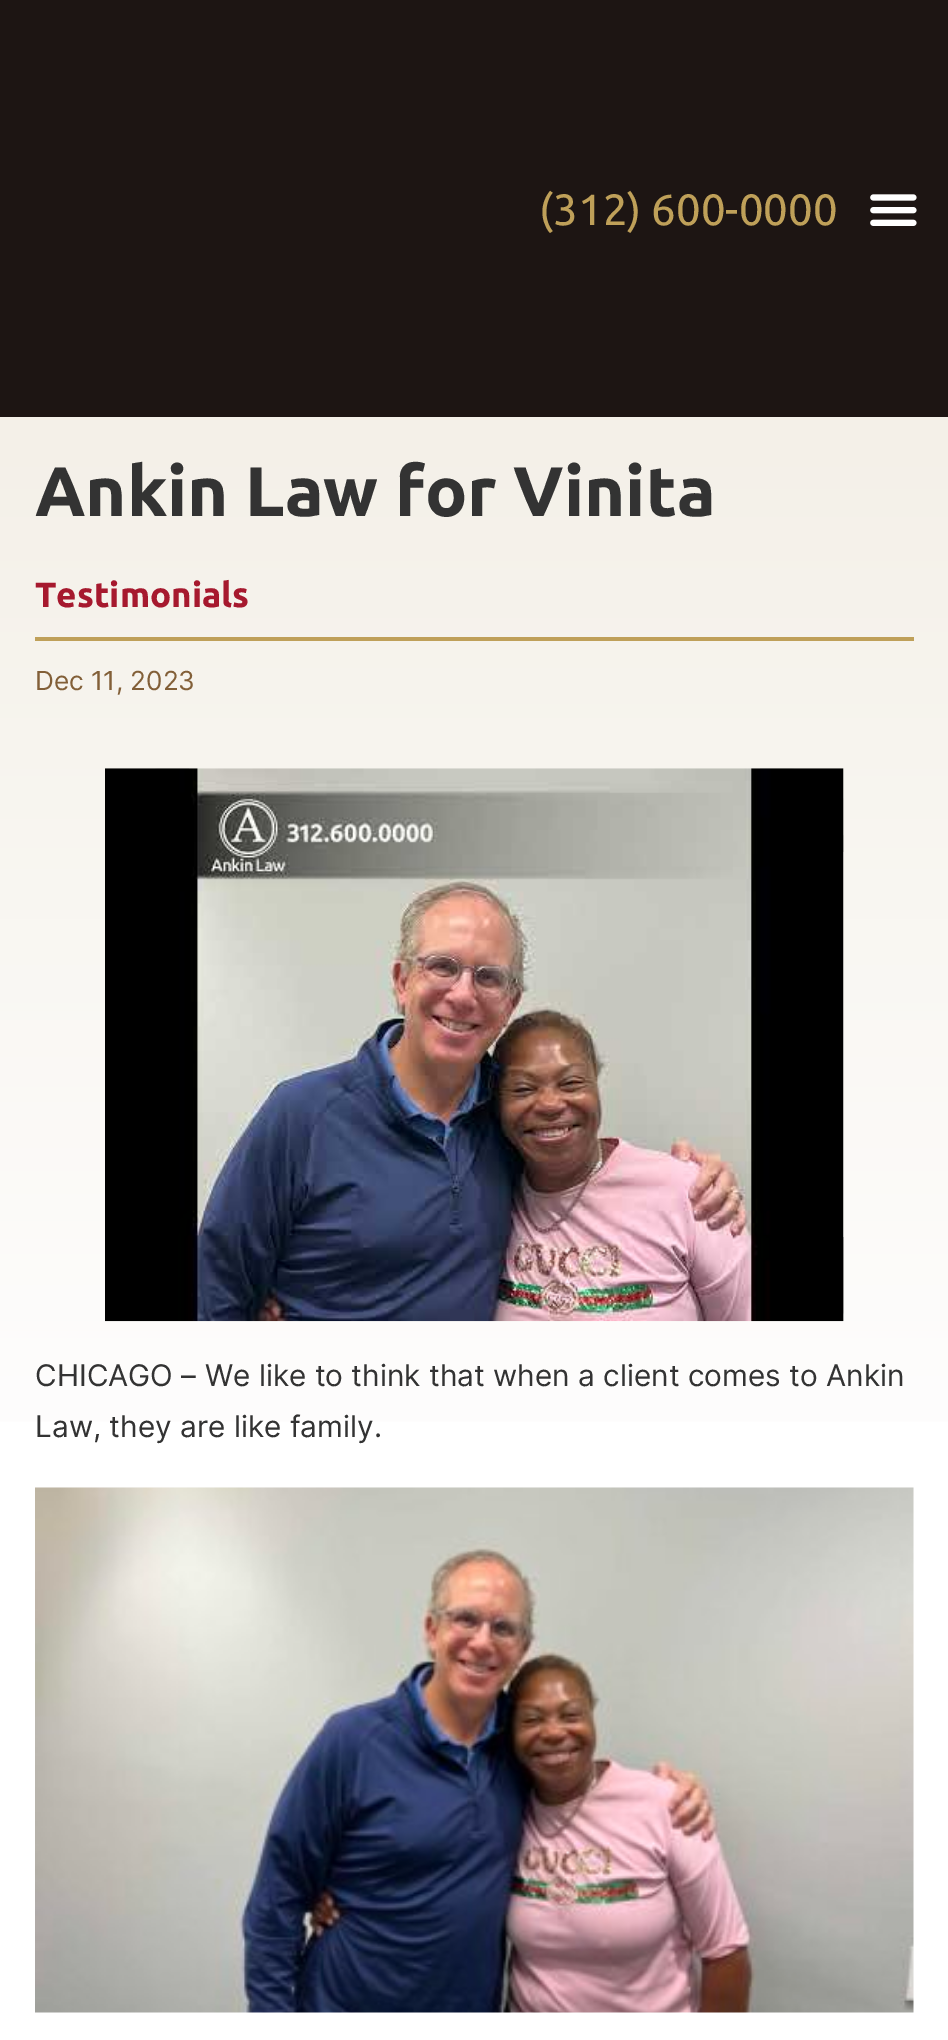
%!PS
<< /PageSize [948 2040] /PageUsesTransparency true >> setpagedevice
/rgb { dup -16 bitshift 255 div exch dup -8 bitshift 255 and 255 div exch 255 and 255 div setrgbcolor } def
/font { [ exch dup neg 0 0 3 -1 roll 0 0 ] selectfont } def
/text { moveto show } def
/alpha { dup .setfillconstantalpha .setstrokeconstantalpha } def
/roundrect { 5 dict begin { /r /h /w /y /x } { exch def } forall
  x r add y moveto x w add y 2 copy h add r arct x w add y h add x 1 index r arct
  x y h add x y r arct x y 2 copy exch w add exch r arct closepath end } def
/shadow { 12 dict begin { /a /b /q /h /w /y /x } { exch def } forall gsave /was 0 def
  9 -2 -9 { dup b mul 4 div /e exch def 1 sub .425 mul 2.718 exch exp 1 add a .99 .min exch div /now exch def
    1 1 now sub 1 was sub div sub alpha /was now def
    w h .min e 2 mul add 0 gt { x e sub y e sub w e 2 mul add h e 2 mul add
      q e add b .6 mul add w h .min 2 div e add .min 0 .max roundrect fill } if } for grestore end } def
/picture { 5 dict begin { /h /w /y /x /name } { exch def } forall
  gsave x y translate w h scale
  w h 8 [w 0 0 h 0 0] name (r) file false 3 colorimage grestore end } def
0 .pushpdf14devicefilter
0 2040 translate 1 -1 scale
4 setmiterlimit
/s1 { /Ubuntu-Regular 43.75 font 16#BFA059 rgb } def
/s2 { /Ubuntu-Bold 70 font 16#333333 rgb } def
/s3 { /Ubuntu-Bold 35 font 16#A6192E rgb } def
/s4 { /Inter-Regular 26.25 font 16#825F38 rgb } def
/s5 { /Inter-Regular 29.75 font 16#333333 rgb } def
16#FFFFFF rgb
0 0 948 2040 rectfill
16#1D1513 rgb
0 0 948 417 rectfill
s1
(\(312\) 600-0000) 539 225 text
(pic1.raw) 870 194 47 32 picture
gsave 0 417 moveto 948 417 lineto 948 1422 lineto 0 1422 lineto closepath clip newpath
<< /ShadingType 2 /ColorSpace /DeviceRGB /Coords [474 287 474 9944] /Extend [true true] /Function << /FunctionType 3 /Domain [0 1] /Functions [<< /FunctionType 2 /Domain [0 1] /C0 [0.957 0.941 0.906] /C1 [0.957 0.941 0.906] /N 1 >> << /FunctionType 2 /Domain [0 1] /C0 [0.957 0.941 0.906] /C1 [1 1 1] /N 1 >> << /FunctionType 2 /Domain [0 1] /C0 [1 1 1] /C1 [1 1 1] /N 1 >>] /Bounds [0.01 0.13] /Encode [0 1 0 1 0 1] >> >> shfill grestore
s2
(Ankin Law for Vinita) 35 516 text
s3
(Testimonials) 35 607 text
16#BFA059 rgb
35 637 879 4 rectfill
s4
(Dec 11, 2023) 35 690 text
(pic2.raw) 105 768 739 554 picture
(pic3.raw) 35 1487 879 526 picture
gsave
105 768 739 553 rectclip
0 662 moveto 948 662 lineto 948 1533 lineto 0 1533 lineto closepath 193 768 moveto 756 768 lineto 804.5 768 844 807.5 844 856 curveto 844 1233 lineto 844 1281.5 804.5 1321 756 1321 curveto 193 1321 lineto 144.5 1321 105 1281.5 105 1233 curveto 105 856 lineto 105 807.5 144.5 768 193 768 curveto closepath eoclip newpath
16#000000 rgb
105 821 739 553 88 52.5 0.4 shadow
grestore
s5
(CHICAGO – We like to think that when a client comes to Ankin) 35 1386 text
(Law, they are like family.) 35 1437 text
.poppdf14devicefilter showpage
